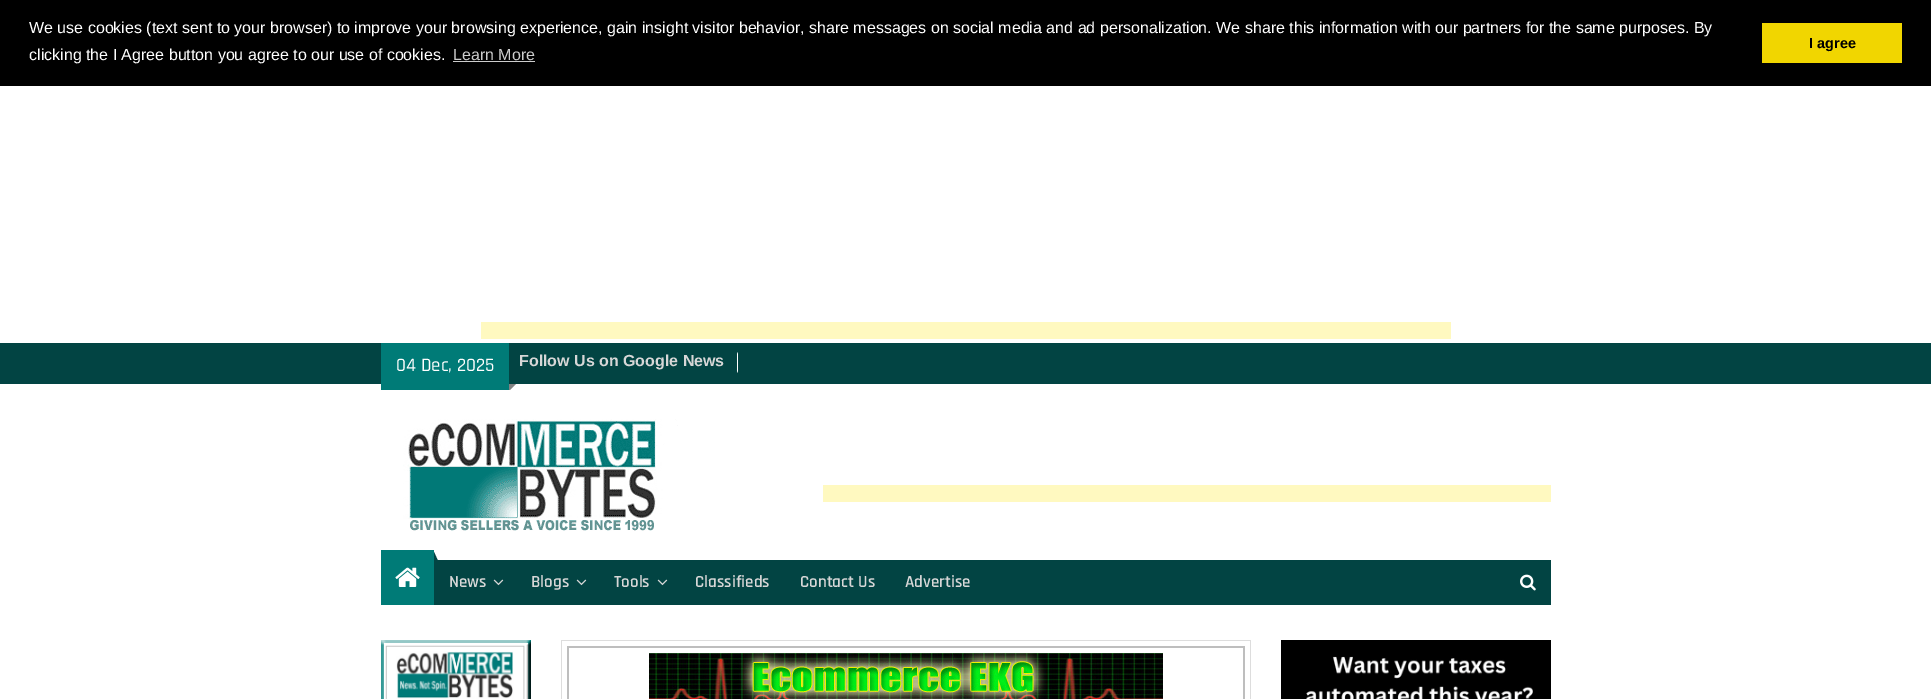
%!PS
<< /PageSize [1931 699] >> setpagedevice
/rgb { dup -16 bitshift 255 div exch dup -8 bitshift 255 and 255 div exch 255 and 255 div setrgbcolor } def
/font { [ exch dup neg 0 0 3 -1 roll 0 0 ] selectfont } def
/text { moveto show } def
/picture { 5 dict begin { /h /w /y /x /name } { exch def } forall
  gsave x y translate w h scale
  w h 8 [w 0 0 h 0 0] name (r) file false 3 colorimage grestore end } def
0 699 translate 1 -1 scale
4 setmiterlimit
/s1 { /LiberationSans-Regular 16 font 16#FFFFFF rgb } def
/s2 { /LiberationSans-Regular 16 font 16#CCCCCC rgb } def
/s3 { /LiberationSans-Bold 14.5 font 16#000000 rgb } def
/s4 { /Rajdhani-Medium 19 font 16#FFFFFF rgb } def
/s5 { /LiberationSans-Bold 16 font 16#D7D7D7 rgb } def
/s6 { /Rajdhani-SemiBold 17 font 16#D7D7D7 rgb } def
16#FFFFFF rgb
0 0 1931 699 rectfill
16#000000 rgb
0 0 1931 86 rectfill
s1
(We use cookies \(text sent to your browser\) to improve your browsing experience, gain insight visitor behavior, share messages on social media and ad personalization. We share this information with our partners for the same purposes. By) 29 33 text
(clicking the I Agree button you agree to our use of cookies.) 29 60 text
s2
(Learn More) 453 60 text
453 61 82 1 rectfill
16#F1D600 rgb
1762 23 140 40 rectfill
s3
(I agree) 1809 48 text
16#FFF9C0 rgb
481 322 970 17 rectfill
16#024443 rgb
0 343 1931 41 rectfill
16#007B77 rgb
381 343 128 47 rectfill
s4
(04 Dec, 2025) 396 371 text
16#838383 rgb
509 384 moveto 516 384 lineto 510 390 lineto 509 390 lineto closepath fill
s5
(Follow Us on Google News) 519 366 text
16#FFFFFF rgb
737 373 moveto 737 352 lineto 738 354 lineto 738 371 lineto closepath fill
(pic1.raw) 403 419 275 112 picture
16#FFF9C0 rgb
823 485 728 17 rectfill
16#024443 rgb
434 560 1117 45 rectfill
16#007B77 rgb
381 550 53 55 rectfill
16#024443 rgb
434 563 moveto 434 552 lineto 439 563 lineto closepath fill
(pic2.raw) 395 567 25 20 picture
s6
(News) 449 587 text
(pic3.raw) 493 579 11 7 picture
(Blogs) 531 587 text
(pic3.raw) 576 579 11 7 picture
(Tools) 614 587 text
(pic3.raw) 657 579 11 7 picture
(Classifieds) 695 587 text
(Contact Us) 800 587 text
(Advertise) 905 587 text
(pic4.raw) 1520 574 16 17 picture
(pic5.raw) 381 640 150 59 picture
16#DDDDDD rgb
561 640 690 1 rectfill
1250 640 1 59 rectfill
561 640 1 59 rectfill
16#BEBEBE rgb
567 646 678 2 rectfill
1243 646 2 53 rectfill
567 646 2 53 rectfill
(pic6.raw) 649 653 514 46 picture
(pic7.raw) 1281 640 270 59 picture
showpage
